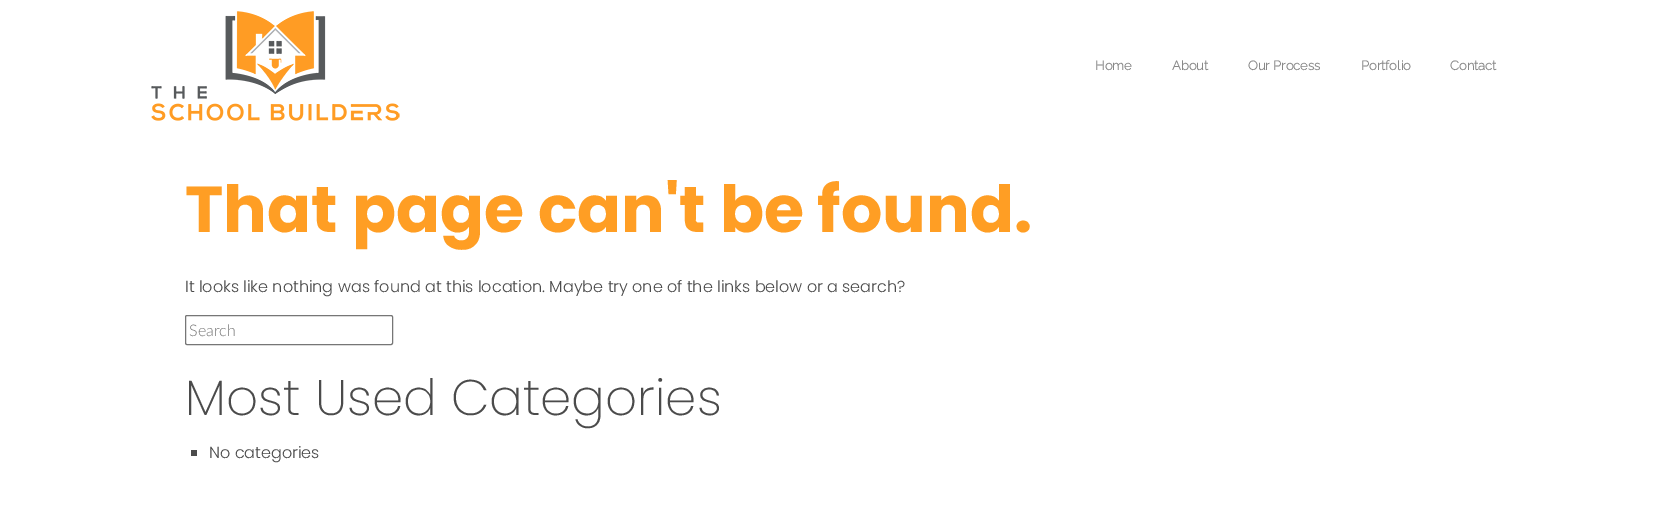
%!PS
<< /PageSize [1667 530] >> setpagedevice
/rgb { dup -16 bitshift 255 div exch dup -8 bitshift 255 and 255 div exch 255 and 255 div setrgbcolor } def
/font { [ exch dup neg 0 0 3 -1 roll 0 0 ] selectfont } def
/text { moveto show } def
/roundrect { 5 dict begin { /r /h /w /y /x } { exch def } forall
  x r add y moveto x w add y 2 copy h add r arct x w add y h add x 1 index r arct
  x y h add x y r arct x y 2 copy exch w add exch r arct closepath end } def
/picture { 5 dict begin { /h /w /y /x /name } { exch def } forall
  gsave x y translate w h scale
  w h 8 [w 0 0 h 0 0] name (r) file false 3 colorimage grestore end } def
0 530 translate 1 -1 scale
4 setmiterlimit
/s1 { /Raleway-Bold 13 font 16#898989 rgb } def
/s2 { /Poppins-Bold 65 font 16#FF9E24 rgb } def
/s3 { /Poppins-Light 16 font 16#4B4B4B rgb } def
/s4 { /Lato-Light 16 font 16#757575 rgb } def
/s5 { /Poppins-ExtraLight 50 font 16#4B4B4B rgb } def
16#FFFFFF rgb
0 0 1667 530 rectfill
(pic1.raw) 151 11 249 110 picture
s1
(Home) 1095 70 text
(About) 1172 70 text
(Our Process) 1248 70 text
(Portfolio) 1361 70 text
(Contact) 1450 70 text
s2
(That page can't be found.) 185 232 text
s3
(It looks like nothing was found at this location. Maybe try one of the links below or a search?) 185 292 text
16#767676 rgb
185.5 315.5 207 29 1.5 roundrect stroke
s4
(Search) 189 336 text
s5
(Most Used Categories) 185 415 text
191 450 6 6 rectfill
s3
(No categories) 209 458 text
showpage
